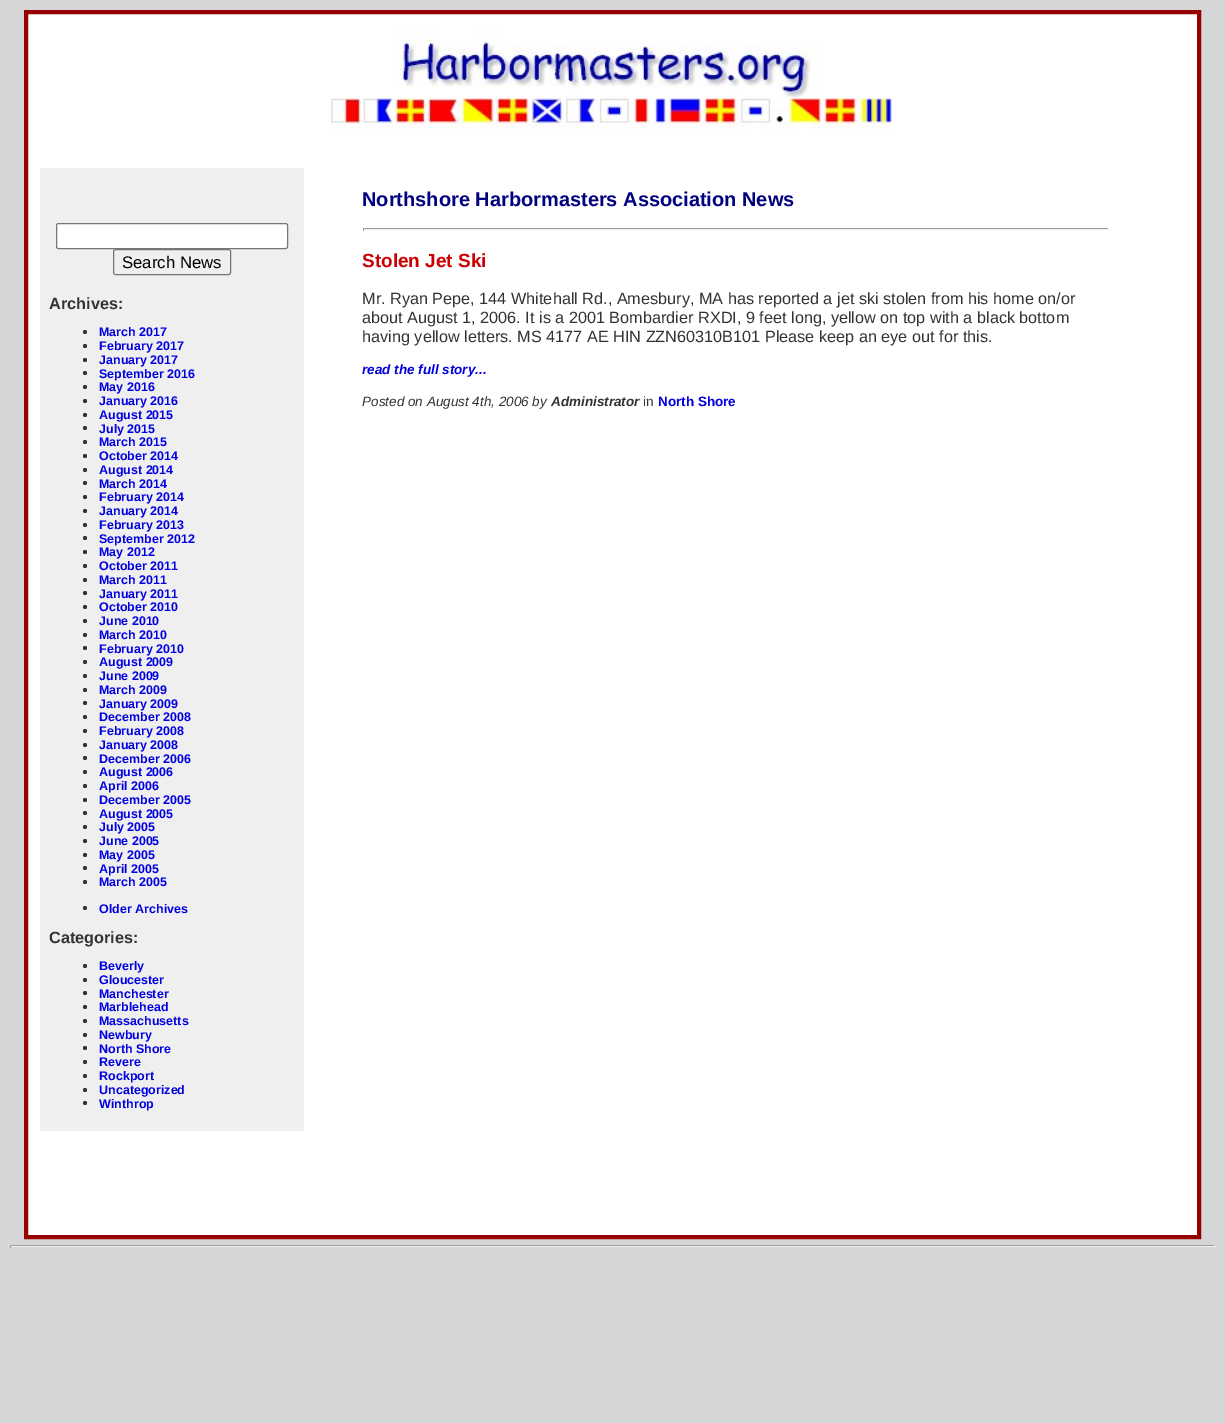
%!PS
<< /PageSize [1225 1423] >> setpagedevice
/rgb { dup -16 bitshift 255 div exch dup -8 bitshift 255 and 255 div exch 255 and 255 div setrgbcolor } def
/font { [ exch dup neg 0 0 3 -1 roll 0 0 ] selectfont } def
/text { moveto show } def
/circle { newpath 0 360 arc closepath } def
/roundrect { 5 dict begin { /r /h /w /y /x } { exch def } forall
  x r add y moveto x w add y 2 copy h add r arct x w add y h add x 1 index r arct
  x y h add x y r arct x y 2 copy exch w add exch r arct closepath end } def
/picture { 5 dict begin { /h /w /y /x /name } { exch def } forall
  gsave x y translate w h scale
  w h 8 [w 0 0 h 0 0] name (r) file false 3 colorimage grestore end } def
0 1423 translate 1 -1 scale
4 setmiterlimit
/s1 { /LiberationSans-Regular 16.75 font 16#000000 rgb } def
/s2 { /LiberationSans-Bold 16.25 font 16#333333 rgb } def
/s3 { /LiberationSans-Bold 12.5 font 16#0000E1 rgb } def
/s4 { /LiberationSans-Bold 20 font 16#000080 rgb } def
/s5 { /LiberationSans-Bold 19 font 16#CC0000 rgb } def
/s6 { /LiberationSans-Regular 16.25 font 16#333333 rgb } def
/s7 { /LiberationSans-BoldItalic 13.5 font 16#0000E1 rgb } def
/s8 { /LiberationSans-Italic 13.5 font 16#333333 rgb } def
/s9 { /LiberationSans-BoldItalic 13.5 font 16#333333 rgb } def
/s10 { /LiberationSans-Regular 13.5 font 16#333333 rgb } def
/s11 { /LiberationSans-Bold 13.5 font 16#0000E1 rgb } def
16#D5D6D7 rgb
0 0 1225 1423 rectfill
16#FFFFFF rgb
26 12 moveto 1199 12 lineto 1199 1237 lineto 26 1237 lineto closepath gsave fill grestore
16#960000 rgb
4 setlinewidth
stroke
(pic1.raw) 399 26 420 73 picture
(pic2.raw) 331 98 561 31 picture
16#EFEFEF rgb
40 168 264 963 rectfill
16#FFFFFF rgb
56.5 223.5 231 25 2 roundrect gsave fill grestore
16#767676 rgb
1 setlinewidth
stroke
113.5 249.5 117 25 2 roundrect stroke
s1
(Search News) 122 268 text
s2
(Archives:) 49 309 text
85 332 2 circle fill
s3
(March 2017) 99 336 text
16#333333 rgb
85 346 2 circle fill
s3
(February 2017) 99 350 text
16#333333 rgb
85 360 2 circle fill
s3
(January 2017) 99 364 text
16#333333 rgb
85 373 2 circle fill
s3
(September 2016) 99 378 text
16#333333 rgb
85 387 2 circle fill
s3
(May 2016) 99 391 text
16#333333 rgb
85 401 2 circle fill
s3
(January 2016) 99 405 text
16#333333 rgb
85 415 2 circle fill
s3
(August 2015) 99 419 text
16#333333 rgb
85 428 2 circle fill
s3
(July 2015) 99 433 text
16#333333 rgb
85 442 2 circle fill
s3
(March 2015) 99 446 text
16#333333 rgb
85 456 2 circle fill
s3
(October 2014) 99 460 text
16#333333 rgb
85 470 2 circle fill
s3
(August 2014) 99 474 text
16#333333 rgb
85 483 2 circle fill
s3
(March 2014) 99 488 text
16#333333 rgb
85 497 2 circle fill
s3
(February 2014) 99 501 text
16#333333 rgb
85 511 2 circle fill
s3
(January 2014) 99 515 text
16#333333 rgb
85 525 2 circle fill
s3
(February 2013) 99 529 text
16#333333 rgb
85 538 2 circle fill
s3
(September 2012) 99 543 text
16#333333 rgb
85 552 2 circle fill
s3
(May 2012) 99 556 text
16#333333 rgb
85 566 2 circle fill
s3
(October 2011) 99 570 text
16#333333 rgb
85 580 2 circle fill
s3
(March 2011) 99 584 text
16#333333 rgb
85 593 2 circle fill
s3
(January 2011) 99 598 text
16#333333 rgb
85 607 2 circle fill
s3
(October 2010) 99 611 text
16#333333 rgb
85 621 2 circle fill
s3
(June 2010) 99 625 text
16#333333 rgb
85 635 2 circle fill
s3
(March 2010) 99 639 text
16#333333 rgb
85 648 2 circle fill
s3
(February 2010) 99 653 text
16#333333 rgb
85 662 2 circle fill
s3
(August 2009) 99 666 text
16#333333 rgb
85 676 2 circle fill
s3
(June 2009) 99 680 text
16#333333 rgb
85 690 2 circle fill
s3
(March 2009) 99 694 text
16#333333 rgb
85 703 2 circle fill
s3
(January 2009) 99 708 text
16#333333 rgb
85 717 2 circle fill
s3
(December 2008) 99 721 text
16#333333 rgb
85 731 2 circle fill
s3
(February 2008) 99 735 text
16#333333 rgb
85 745 2 circle fill
s3
(January 2008) 99 749 text
16#333333 rgb
85 758 2 circle fill
s3
(December 2006) 99 763 text
16#333333 rgb
85 772 2 circle fill
s3
(August 2006) 99 776 text
16#333333 rgb
85 786 2 circle fill
s3
(April 2006) 99 790 text
16#333333 rgb
85 800 2 circle fill
s3
(December 2005) 99 804 text
16#333333 rgb
85 813 2 circle fill
s3
(August 2005) 99 818 text
16#333333 rgb
85 827 2 circle fill
s3
(July 2005) 99 831 text
16#333333 rgb
85 841 2 circle fill
s3
(June 2005) 99 845 text
16#333333 rgb
85 855 2 circle fill
s3
(May 2005) 99 859 text
16#333333 rgb
85 868 2 circle fill
s3
(April 2005) 99 873 text
16#333333 rgb
85 882 2 circle fill
s3
(March 2005) 99 886 text
16#333333 rgb
85 908 2 circle fill
s3
(Older Archives) 99 913 text
s2
(Categories:) 49 943 text
85 966 2 circle fill
s3
(Beverly) 99 970 text
16#333333 rgb
85 980 2 circle fill
s3
(Gloucester) 99 984 text
16#333333 rgb
85 993 2 circle fill
s3
(Manchester) 99 998 text
16#333333 rgb
85 1007 2 circle fill
s3
(Marblehead) 99 1011 text
16#333333 rgb
85 1021 2 circle fill
s3
(Massachusetts) 99 1025 text
16#333333 rgb
85 1035 2 circle fill
s3
(Newbury) 99 1039 text
16#333333 rgb
85 1048 2 circle fill
s3
(North Shore) 99 1053 text
16#333333 rgb
85 1062 2 circle fill
s3
(Revere) 99 1066 text
16#333333 rgb
85 1076 2 circle fill
s3
(Rockport) 99 1080 text
16#333333 rgb
85 1090 2 circle fill
s3
(Uncategorized) 99 1094 text
16#333333 rgb
85 1103 2 circle fill
s3
(Winthrop) 99 1108 text
s4
(Northshore Harbormasters Association News) 362 206 text
16#9F9F9F rgb
363 228 746 1 rectfill
16#EEEEEE rgb
1108 228 1 3 rectfill
363 229 746 1 rectfill
16#9F9F9F rgb
363 228 1 3 rectfill
s5
(Stolen Jet Ski) 362 267 text
s6
(Mr. Ryan Pepe, 144 Whitehall Rd., Amesbury, MA has reported a jet ski stolen from his home on/or) 362 304 text
(about August 1, 2006. It is a 2001 Bombardier RXDI, 9 feet long, yellow on top with a black bottom) 362 323 text
(having yellow letters. MS 4177 AE HIN ZZN60310B101 Please keep an eye out for this.) 362 342 text
s7
(read the full story...) 362 374 text
s8
(Posted on August 4th, 2006 by) 362 406 text
s9
(Administrator) 551 406 text
s10
(in) 643 406 text
s11
(North Shore) 658 406 text
16#9F9F9F rgb
10 1245 1205 1 rectfill
16#EEEEEE rgb
1214 1245 1 3 rectfill
10 1246 1205 1 rectfill
16#9F9F9F rgb
10 1245 1 3 rectfill
showpage
